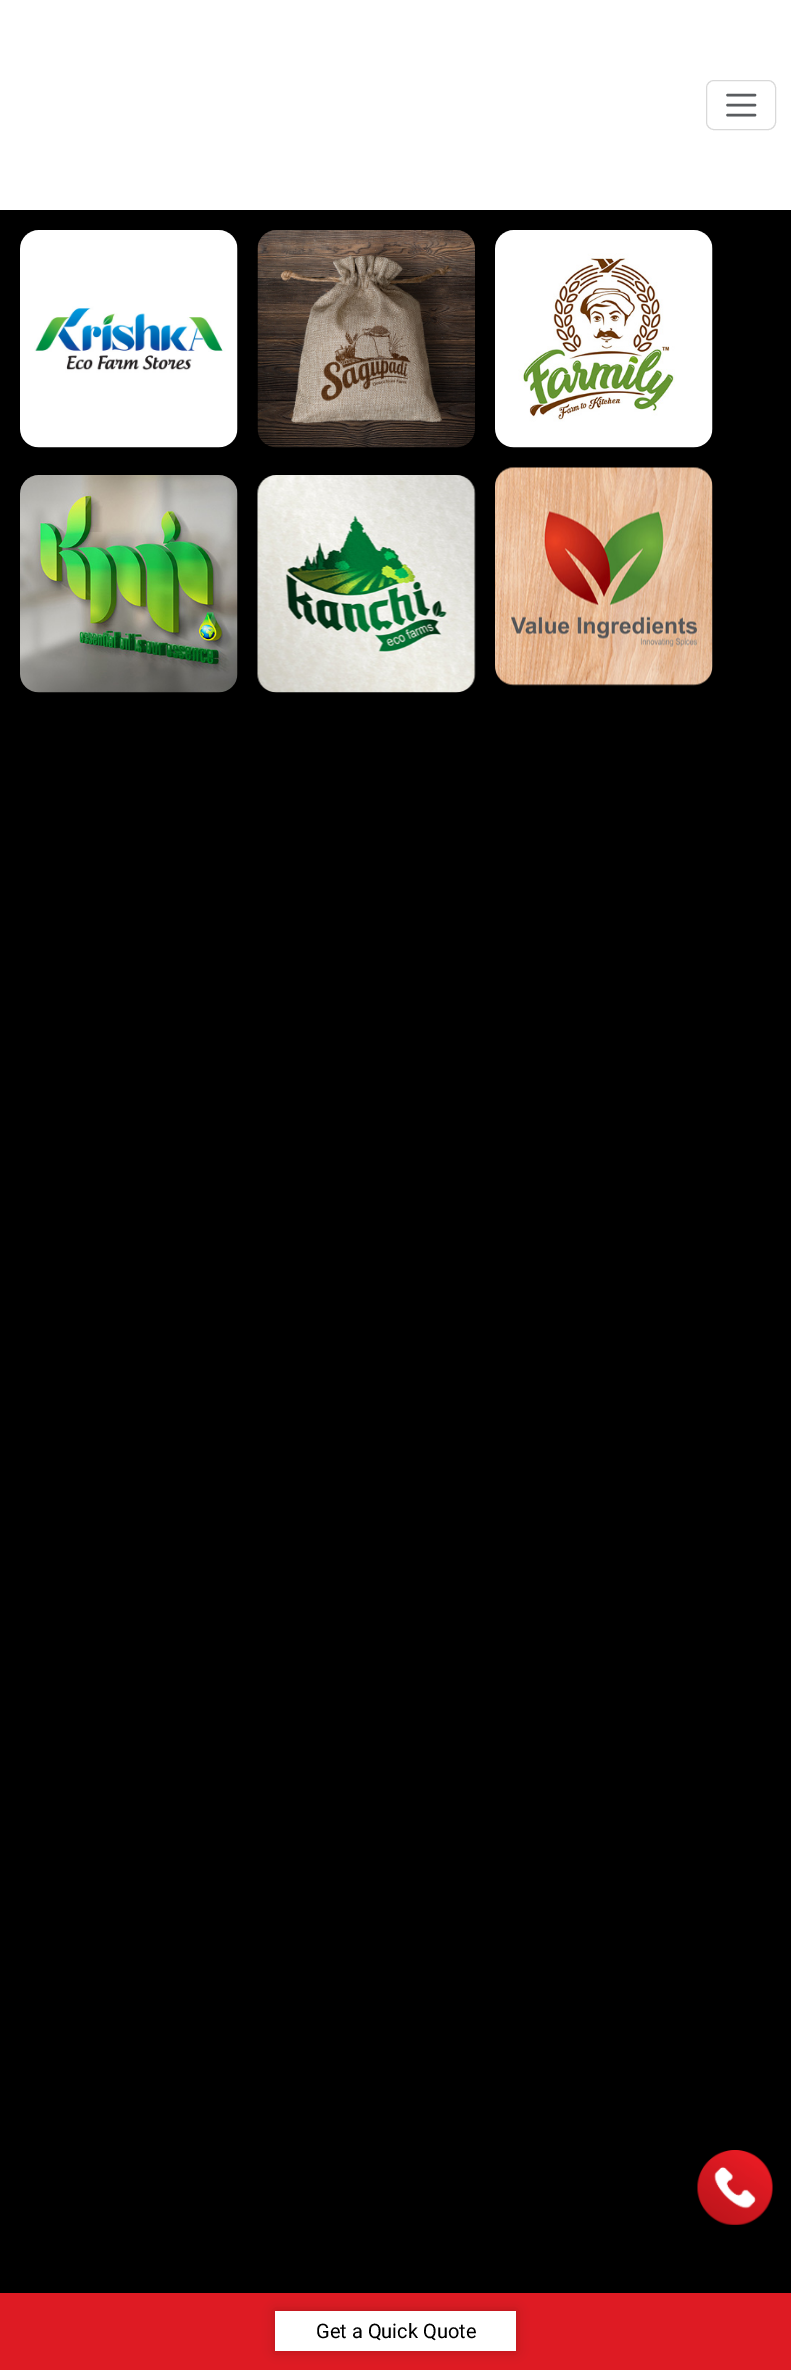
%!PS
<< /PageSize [791 2370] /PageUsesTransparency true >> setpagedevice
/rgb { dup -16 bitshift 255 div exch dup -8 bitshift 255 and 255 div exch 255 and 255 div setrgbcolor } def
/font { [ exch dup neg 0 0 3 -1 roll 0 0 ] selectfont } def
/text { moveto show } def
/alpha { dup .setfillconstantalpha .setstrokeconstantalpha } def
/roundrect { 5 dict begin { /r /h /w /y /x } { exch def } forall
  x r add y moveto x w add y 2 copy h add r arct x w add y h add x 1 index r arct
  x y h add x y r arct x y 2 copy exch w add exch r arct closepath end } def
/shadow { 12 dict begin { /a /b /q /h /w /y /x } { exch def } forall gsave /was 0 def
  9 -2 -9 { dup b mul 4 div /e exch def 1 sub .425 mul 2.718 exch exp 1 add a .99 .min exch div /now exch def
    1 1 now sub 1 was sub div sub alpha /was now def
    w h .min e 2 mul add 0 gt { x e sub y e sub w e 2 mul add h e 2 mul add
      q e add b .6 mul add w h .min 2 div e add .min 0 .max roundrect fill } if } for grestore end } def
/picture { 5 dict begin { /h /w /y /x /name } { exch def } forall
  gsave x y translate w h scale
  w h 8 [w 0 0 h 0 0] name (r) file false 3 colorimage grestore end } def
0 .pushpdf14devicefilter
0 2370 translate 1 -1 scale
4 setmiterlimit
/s1 { /Roboto-Regular 20 font 16#000000 rgb } def
16#000000 rgb
0 0 791 2370 rectfill
16#FFFFFF rgb
0 0 791 210 rectfill
16#D9D9D9 rgb
706.5 80.5 69 49 7.5 roundrect stroke
16#595C5F rgb
2.5 setlinewidth
1 setlinecap
727.5 95 moveto 755 95 lineto 727.5 105 moveto 755 105 lineto 727.5 115 moveto 755 115 lineto stroke
(pic1.raw) 20 230 218 218 picture
(pic2.raw) 257 230 218 218 picture
(pic3.raw) 495 230 218 218 picture
(pic4.raw) 20 475 218 218 picture
(pic5.raw) 257 475 219 218 picture
(pic6.raw) 495 467 218 219 picture
(pic7.raw) 697 2150 76 75 picture
16#DE1B23 rgb
0 2293 791 77 rectfill
16#000000 rgb
275 2311 241 40 0 6 0.2 shadow
16#FFFFFF rgb
275 2311 241 40 rectfill
s1
(Get a Quick Quote) 316 2338 text
.poppdf14devicefilter showpage
